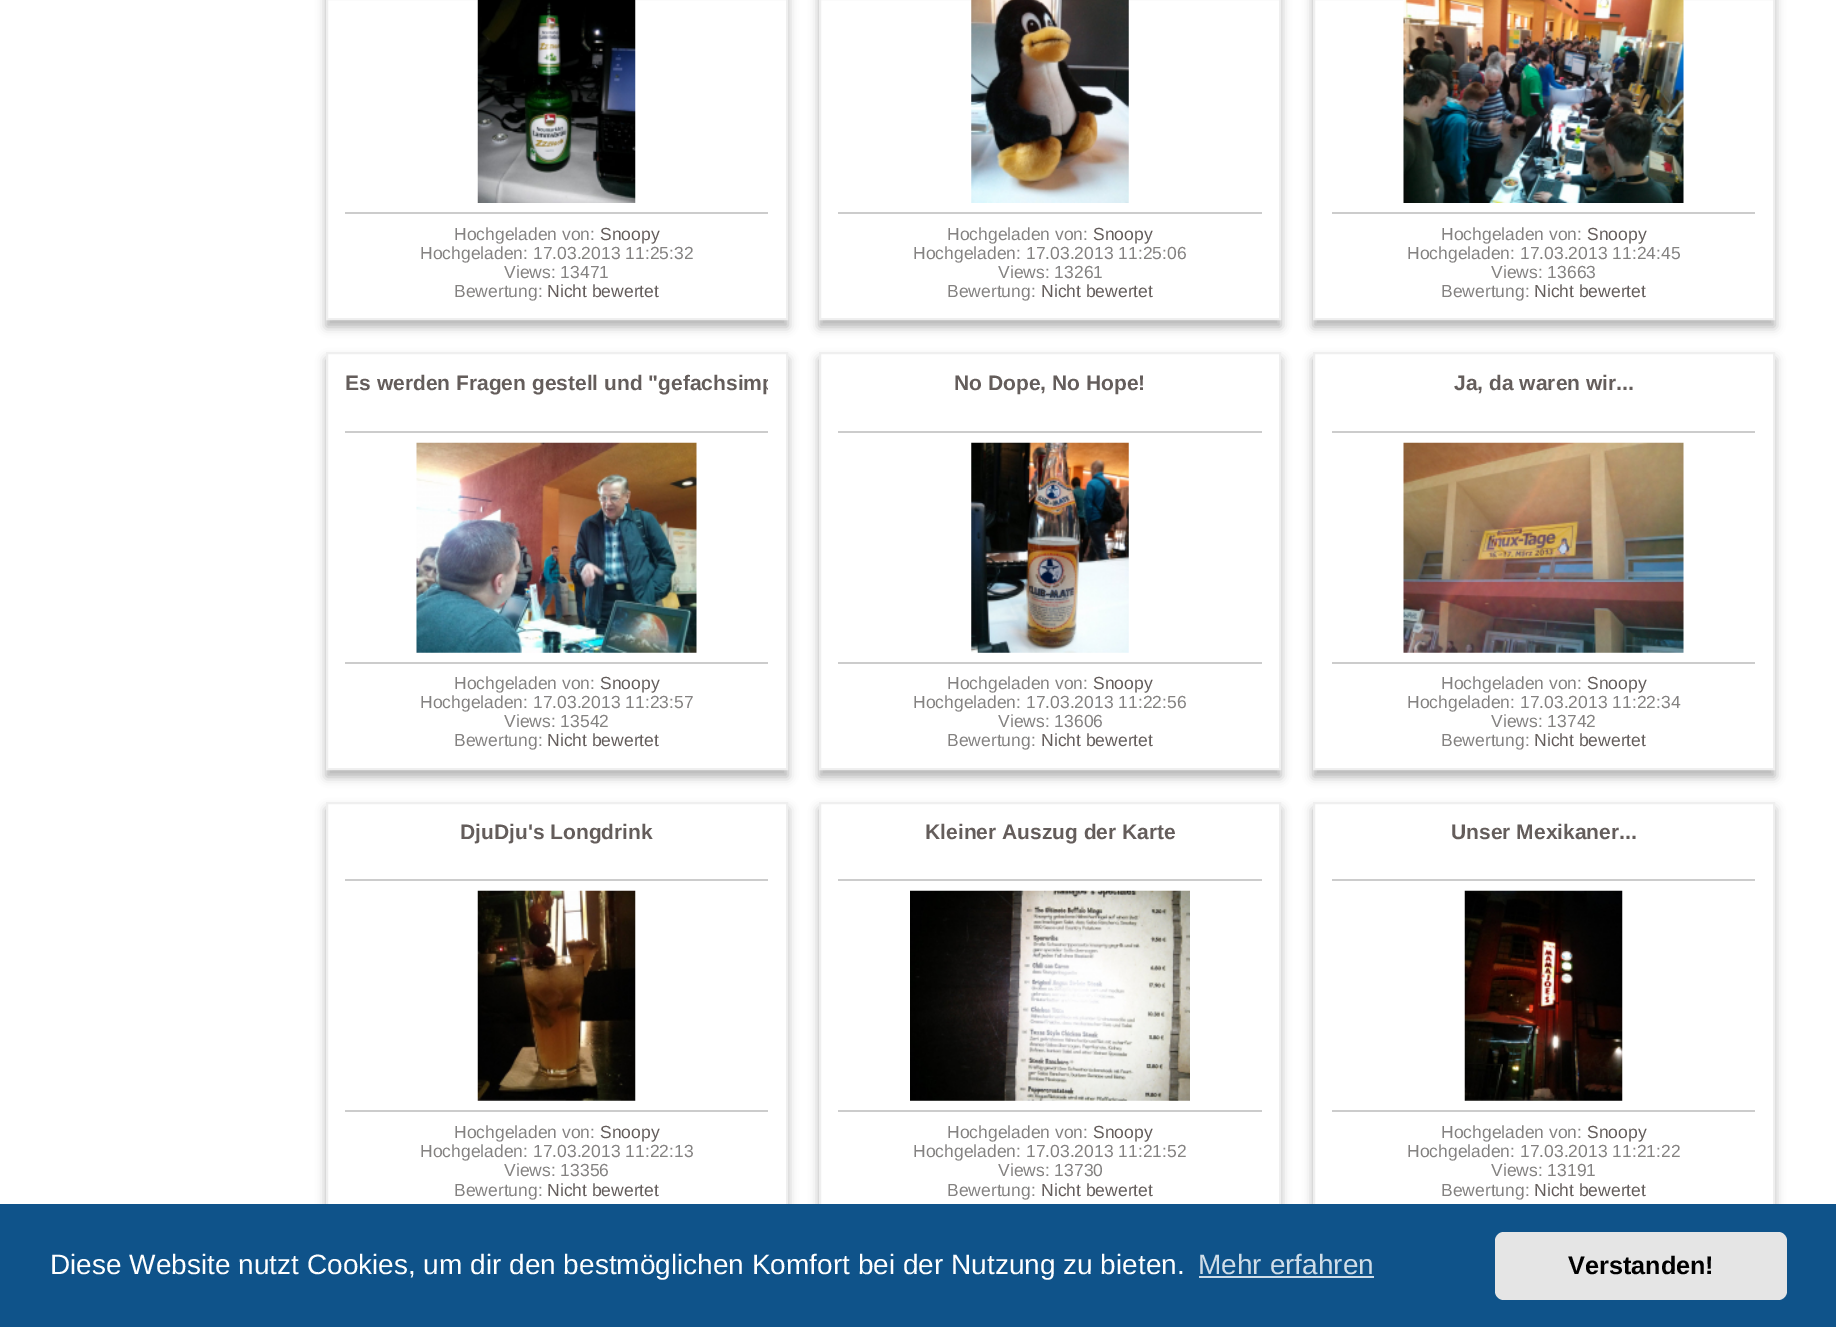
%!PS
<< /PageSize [1836 1327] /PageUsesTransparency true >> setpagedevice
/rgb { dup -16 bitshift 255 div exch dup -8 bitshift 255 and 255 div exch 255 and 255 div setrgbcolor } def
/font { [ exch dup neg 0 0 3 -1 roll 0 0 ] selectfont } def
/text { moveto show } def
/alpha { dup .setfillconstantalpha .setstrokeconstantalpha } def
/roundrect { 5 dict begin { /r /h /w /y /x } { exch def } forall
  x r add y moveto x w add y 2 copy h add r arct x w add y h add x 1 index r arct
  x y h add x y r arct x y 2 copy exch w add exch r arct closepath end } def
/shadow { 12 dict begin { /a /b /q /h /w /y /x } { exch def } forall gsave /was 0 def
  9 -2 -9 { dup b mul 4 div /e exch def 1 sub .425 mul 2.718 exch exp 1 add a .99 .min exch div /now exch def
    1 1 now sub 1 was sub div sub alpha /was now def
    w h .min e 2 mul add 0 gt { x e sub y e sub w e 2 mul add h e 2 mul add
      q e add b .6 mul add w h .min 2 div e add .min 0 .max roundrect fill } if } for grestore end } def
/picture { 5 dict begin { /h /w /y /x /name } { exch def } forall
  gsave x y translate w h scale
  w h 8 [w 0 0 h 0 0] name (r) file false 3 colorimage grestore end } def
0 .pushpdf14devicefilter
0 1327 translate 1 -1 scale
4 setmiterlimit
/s1 { /LiberationSans-Regular 17.5 font 16#848281 rgb } def
/s2 { /LiberationSans-Regular 17.5 font 16#645D5B rgb } def
/s3 { /LiberationSans-Bold 21 font 16#645D5B rgb } def
/s4 { /LiberationSans-Regular 28 font 16#FFFFFF rgb } def
/s5 { /LiberationSans-Regular 28 font 16#CFDDE8 rgb } def
/s6 { /LiberationSans-Bold 25.25 font 16#000000 rgb } def
16#FFFFFF rgb
0 0 1836 1327 rectfill
16#000000 rgb
326 -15 462 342 0 5 0.3 shadow
16#FFFFFF rgb
327 -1 moveto 787 -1 lineto 787 319 lineto 327 319 lineto closepath gsave fill grestore
16#EFEFEF rgb
2 setlinewidth
stroke
(pic1.raw) 477 0 159 203 picture
16#CCCCCC rgb
345 212 423 2 rectfill
s1
(Hochgeladen von:) 454 240 text
s2
(Snoopy) 600 240 text
s1
(Hochgeladen: 17.03.2013 11:25:32) 420 259 text
(Views: 13471) 504 278 text
(Bewertung:) 454 297 text
s2
(Nicht bewertet) 547 297 text
gsave
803 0 moveto 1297 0 lineto 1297 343 lineto 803 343 lineto closepath 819 -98 moveto 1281 -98 lineto 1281 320 lineto 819 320 lineto closepath eoclip newpath
16#000000 rgb
819 -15 462 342 0 5 0.3 shadow
grestore
16#EFEFEF rgb
820 -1 460 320 rectstroke
(pic2.raw) 971 0 158 203 picture
16#CCCCCC rgb
838 212 424 2 rectfill
s1
(Hochgeladen von:) 947 240 text
s2
(Snoopy) 1093 240 text
s1
(Hochgeladen: 17.03.2013 11:25:06) 913 259 text
(Views: 13261) 998 278 text
(Bewertung:) 947 297 text
s2
(Nicht bewertet) 1041 297 text
16#000000 rgb
1313 -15 462 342 0 5 0.3 shadow
16#FFFFFF rgb
1314 -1 moveto 1774 -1 lineto 1774 319 lineto 1314 319 lineto closepath gsave fill grestore
16#EFEFEF rgb
stroke
(pic3.raw) 1403 0 281 203 picture
16#CCCCCC rgb
1332 212 423 2 rectfill
s1
(Hochgeladen von:) 1441 240 text
s2
(Snoopy) 1587 240 text
s1
(Hochgeladen: 17.03.2013 11:24:45) 1407 259 text
(Views: 13663) 1491 278 text
(Bewertung:) 1441 297 text
s2
(Nicht bewertet) 1534 297 text
16#000000 rgb
326 359 462 418 0 5 0.3 shadow
16#FFFFFF rgb
327 353 moveto 787 353 lineto 787 769 lineto 327 769 lineto closepath gsave fill grestore
16#EFEFEF rgb
stroke
gsave
345 371 423 28 rectclip
s3
(Es werden Fragen gestell und "gefachsimp) 345 390 text
grestore
16#CCCCCC rgb
345 431 423 2 rectfill
(pic4.raw) 416 442 281 211 picture
345 662 423 2 rectfill
s1
(Hochgeladen von:) 454 689 text
s2
(Snoopy) 600 689 text
s1
(Hochgeladen: 17.03.2013 11:23:57) 420 708 text
(Views: 13542) 504 727 text
(Bewertung:) 454 746 text
s2
(Nicht bewertet) 547 746 text
gsave
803 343 moveto 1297 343 lineto 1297 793 lineto 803 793 lineto closepath 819 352 moveto 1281 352 lineto 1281 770 lineto 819 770 lineto closepath eoclip newpath
16#000000 rgb
819 359 462 418 0 5 0.3 shadow
grestore
16#EFEFEF rgb
820 353 460 416 rectstroke
s3
(No Dope, No Hope!) 954 390 text
16#CCCCCC rgb
838 431 424 2 rectfill
(pic5.raw) 971 442 158 211 picture
838 662 424 2 rectfill
s1
(Hochgeladen von:) 947 689 text
s2
(Snoopy) 1093 689 text
s1
(Hochgeladen: 17.03.2013 11:22:56) 913 708 text
(Views: 13606) 998 727 text
(Bewertung:) 947 746 text
s2
(Nicht bewertet) 1041 746 text
16#000000 rgb
1313 359 462 418 0 5 0.3 shadow
16#FFFFFF rgb
1314 353 moveto 1774 353 lineto 1774 769 lineto 1314 769 lineto closepath gsave fill grestore
16#EFEFEF rgb
stroke
s3
(Ja, da waren wir...) 1454 390 text
16#CCCCCC rgb
1332 431 423 2 rectfill
(pic6.raw) 1403 442 281 211 picture
1332 662 423 2 rectfill
s1
(Hochgeladen von:) 1441 689 text
s2
(Snoopy) 1587 689 text
s1
(Hochgeladen: 17.03.2013 11:22:34) 1407 708 text
(Views: 13742) 1491 727 text
(Bewertung:) 1441 746 text
s2
(Nicht bewertet) 1534 746 text
16#000000 rgb
326 809 462 416 0 5 0.3 shadow
16#FFFFFF rgb
328 804 458 400 rectfill
16#EFEFEF rgb
327 803 460 414 rectstroke
s3
(DjuDju's Longdrink) 460 839 text
16#CCCCCC rgb
345 879 423 2 rectfill
(pic7.raw) 477 890 159 211 picture
345 1110 423 2 rectfill
s1
(Hochgeladen von:) 454 1138 text
s2
(Snoopy) 600 1138 text
s1
(Hochgeladen: 17.03.2013 11:22:13) 420 1157 text
(Views: 13356) 504 1176 text
(Bewertung:) 454 1196 text
s2
(Nicht bewertet) 547 1196 text
gsave
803 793 moveto 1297 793 lineto 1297 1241 lineto 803 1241 lineto closepath 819 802 moveto 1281 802 lineto 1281 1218 lineto 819 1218 lineto closepath eoclip newpath
16#000000 rgb
819 809 462 416 0 5 0.3 shadow
grestore
16#EFEFEF rgb
820 803 460 414 rectstroke
s3
(Kleiner Auszug der Karte) 925 839 text
16#CCCCCC rgb
838 879 424 2 rectfill
(pic8.raw) 910 890 280 211 picture
838 1110 424 2 rectfill
s1
(Hochgeladen von:) 947 1138 text
s2
(Snoopy) 1093 1138 text
s1
(Hochgeladen: 17.03.2013 11:21:52) 913 1157 text
(Views: 13730) 998 1176 text
(Bewertung:) 947 1196 text
s2
(Nicht bewertet) 1041 1196 text
16#000000 rgb
1313 809 462 416 0 5 0.3 shadow
16#FFFFFF rgb
1315 804 458 400 rectfill
16#EFEFEF rgb
1314 803 460 414 rectstroke
s3
(Unser Mexikaner...) 1451 839 text
16#CCCCCC rgb
1332 879 423 2 rectfill
(pic9.raw) 1464 890 159 211 picture
1332 1110 423 2 rectfill
s1
(Hochgeladen von:) 1441 1138 text
s2
(Snoopy) 1587 1138 text
s1
(Hochgeladen: 17.03.2013 11:21:22) 1407 1157 text
(Views: 13191) 1491 1176 text
(Bewertung:) 1441 1196 text
s2
(Nicht bewertet) 1534 1196 text
16#0F538A rgb
0 1204 1836 123 rectfill
s4
(Diese Website nutzt Cookies, um dir den bestmöglichen Komfort bei der Nutzung zu bieten.) 50 1274 text
s5
(Mehr erfahren) 1198 1274 text
1199 1276 175 2 rectfill
16#E5E5E5 rgb
1495 1232 292 68 9 roundrect fill
s6
(Verstanden!) 1568 1274 text
.poppdf14devicefilter showpage
